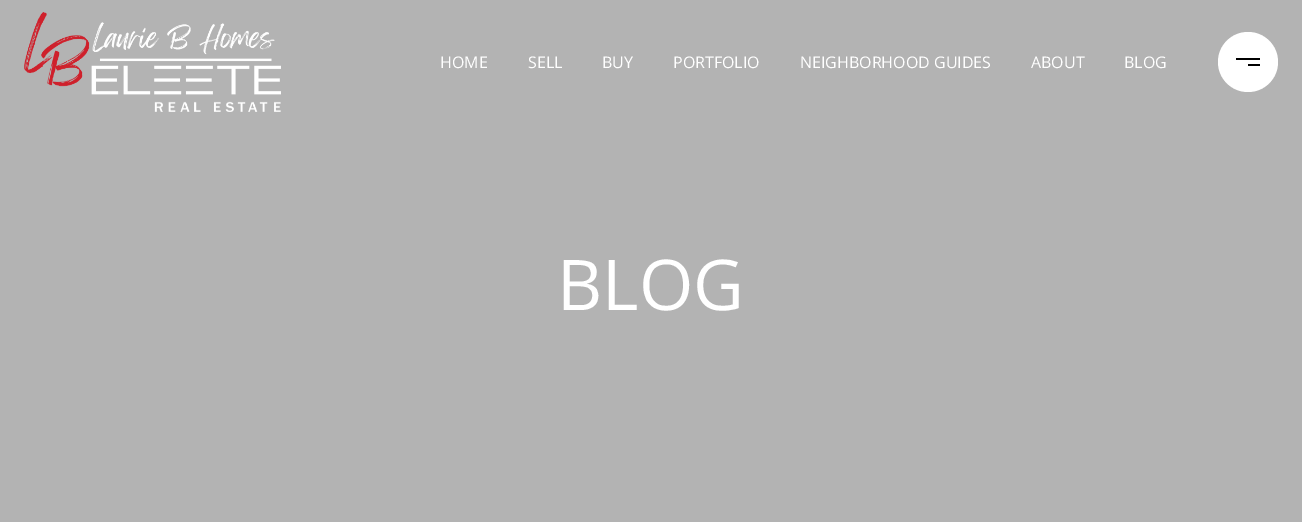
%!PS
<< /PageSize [1302 522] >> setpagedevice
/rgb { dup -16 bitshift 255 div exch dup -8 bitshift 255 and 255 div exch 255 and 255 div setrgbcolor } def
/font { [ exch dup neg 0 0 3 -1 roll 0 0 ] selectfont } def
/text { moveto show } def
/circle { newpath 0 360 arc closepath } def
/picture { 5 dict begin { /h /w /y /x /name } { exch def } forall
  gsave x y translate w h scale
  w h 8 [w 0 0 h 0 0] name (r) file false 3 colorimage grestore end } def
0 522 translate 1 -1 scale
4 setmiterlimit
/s1 { /OpenSans-Regular 16 font 16#FFFFFF rgb } def
/s2 { /OpenSans-Regular 70 font 16#FFFFFF rgb } def
16#B3B3B3 rgb
0 0 1302 522 rectfill
(pic1.raw) 24 12 257 100 picture
s1
(HOME) 440 68 text
(SELL) 528 68 text
(BUY) 602 68 text
(PORTFOLIO) 673 68 text
(NEIGHBORHOOD GUIDES) 800 68 text
(ABOUT) 1031 68 text
(BLOG) 1124 68 text
1248 62 30 circle fill
16#000000 rgb
1236 58 24 2 rectfill
1248 64 12 2 rectfill
s2
(BLOG) 557 310 text
showpage
